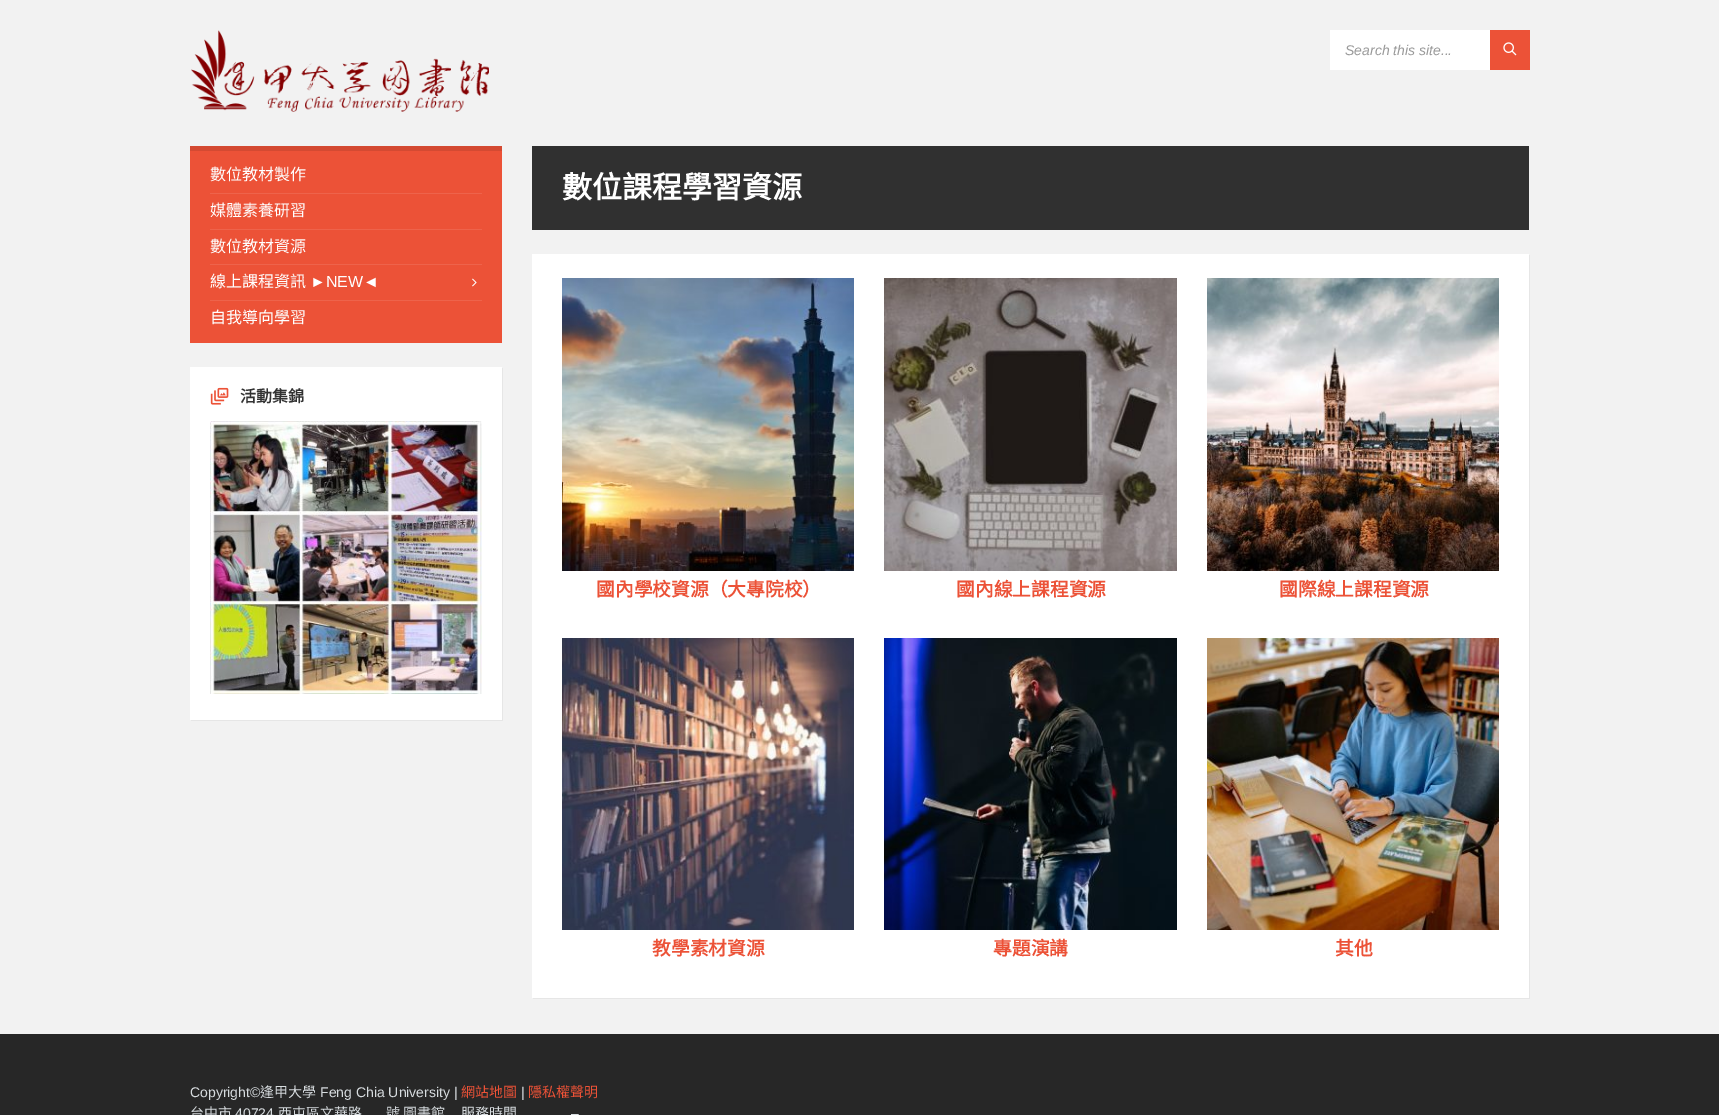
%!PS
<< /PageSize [1719 1115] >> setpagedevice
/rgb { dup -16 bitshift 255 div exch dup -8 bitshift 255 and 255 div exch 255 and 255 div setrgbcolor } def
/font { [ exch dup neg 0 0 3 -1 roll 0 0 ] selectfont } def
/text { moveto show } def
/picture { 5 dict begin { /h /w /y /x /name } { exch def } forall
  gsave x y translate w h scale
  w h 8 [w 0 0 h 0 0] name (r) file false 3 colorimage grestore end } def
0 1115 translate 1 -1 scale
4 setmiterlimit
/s1 { /LiberationSans-Italic 14 font 16#9A9A9A rgb } def
/s2 { /NotoSansCJKTC-Regular 16 font 16#FFFFFF rgb } def
/s3 { /LiberationSans-Regular 16 font 16#FFFFFF rgb } def
/s4 { /NotoSansCJKTC-Bold 16 font 16#333333 rgb } def
/s5 { /NotoSansCJKTC-Bold 30 font 16#FFFFFF rgb } def
/s6 { /NotoSansCJKTC-Bold 18.75 font 16#EC5237 rgb } def
/s7 { /LiberationSans-Regular 14 font 16#D7DCDF rgb } def
/s8 { /NotoSansCJKTC-Regular 14 font 16#D7DCDF rgb } def
/s9 { /NotoSansCJKTC-Regular 14 font 16#EC5237 rgb } def
16#F2F2F2 rgb
0 0 1719 1115 rectfill
(pic1.raw) 191 30 298 82 picture
16#FFFFFF rgb
1330 30 160 40 rectfill
s1
(Search this site...) 1345 55 text
16#EC5237 rgb
1490 30 40 40 rectfill
(pic2.raw) 1503 42 14 14 picture
190 151 312 192 rectfill
16#D44A32 rgb
190 146 312 5 rectfill
s2
(數位教材製作) 210 180 text
16#EE634B rgb
210 193 272 1 rectfill
s2
(媒體素養研習) 210 216 text
16#EE634B rgb
210 229 272 1 rectfill
s2
(數位教材資源) 210 252 text
16#EE634B rgb
210 264 272 1 rectfill
s2
(線上課程資訊) 210 287 text
s3
(►NEW◄) 310 287 text
(pic3.raw) 472 278 5 9 picture
16#EE634B rgb
210 300 272 1 rectfill
s2
(自我導向學習) 210 323 text
16#E6E6E6 rgb
191 720 moveto 191 721 lineto 503 721 lineto 503 368 lineto 502 368 lineto 502 720 lineto closepath fill
16#FFFFFF rgb
190 367 312 353 rectfill
(pic4.raw) 210 387 19 18 picture
s4
(活動集錦) 240 402 text
(pic5.raw) 210 421 272 273 picture
16#303030 rgb
532 146 997 84 rectfill
s5
(數位課程學習資源) 562 198 text
16#E6E6E6 rgb
533 998 moveto 533 999 lineto 1530 999 lineto 1530 255 lineto 1529 255 lineto 1529 998 lineto closepath fill
16#FFFFFF rgb
532 254 997 744 rectfill
(pic6.raw) 562 278 292 293 picture
s6
(國內學校資源（大專院校）) 596 596 text
(pic7.raw) 884 278 293 293 picture
(國內線上課程資源) 956 596 text
(pic8.raw) 1207 278 292 293 picture
(國際線上課程資源) 1279 596 text
(pic9.raw) 562 638 292 292 picture
(教學素材資源) 652 955 text
(pic10.raw) 884 638 293 292 picture
(專題演講) 993 955 text
(pic11.raw) 1207 638 292 292 picture
(其他) 1335 955 text
16#272727 rgb
0 1034 1719 81 rectfill
s7
(Copyright©) 190 1097 text
s8
(逢甲大學) 260 1097 text
s7
(Feng Chia University |) 320 1097 text
s9
(網站地圖) 461 1097 text
s7
(|) 521 1097 text
s9
(隱私權聲明) 528 1097 text
s8
(台中市) 190 1118 text
s7
(40724) 235 1118 text
s8
(西屯區文華路) 278 1118 text
(號) 386 1118 text
(圖書館) 403 1118 text
(服務時間) 461 1118 text
s7
(–) 571 1118 text
showpage
